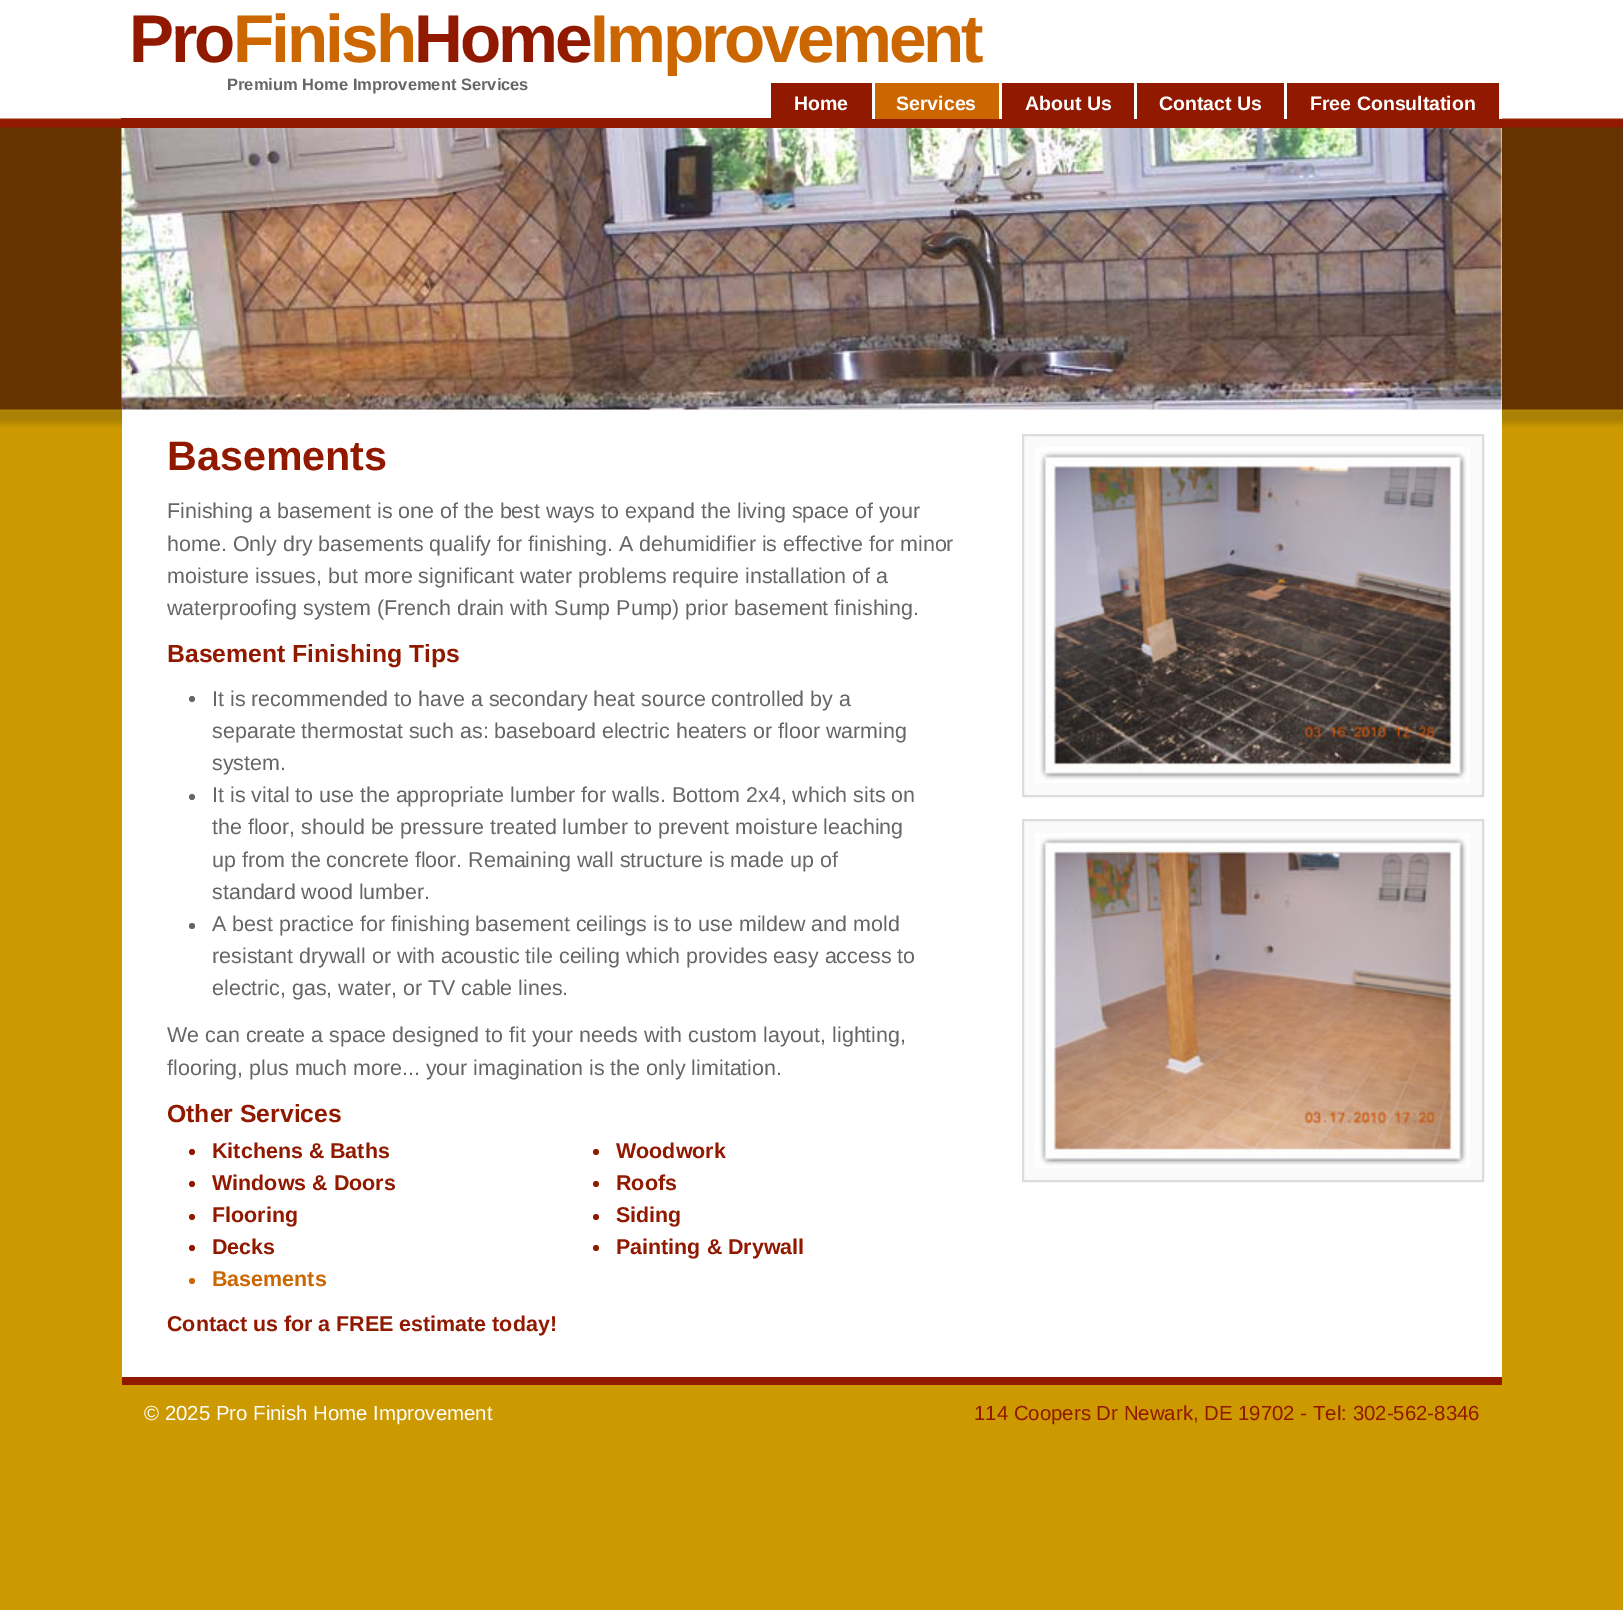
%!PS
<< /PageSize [1623 1610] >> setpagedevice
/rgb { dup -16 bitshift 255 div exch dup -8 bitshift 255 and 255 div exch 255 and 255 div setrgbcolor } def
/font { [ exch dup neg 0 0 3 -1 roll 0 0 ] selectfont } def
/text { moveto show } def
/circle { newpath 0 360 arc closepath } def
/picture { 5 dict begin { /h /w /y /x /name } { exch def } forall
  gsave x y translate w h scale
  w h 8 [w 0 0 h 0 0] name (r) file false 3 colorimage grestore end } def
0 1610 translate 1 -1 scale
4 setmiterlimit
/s1 { /LiberationSans-Bold 16.5 font 16#666666 rgb } def
/s2 { /LiberationSans-Bold 19.5 font 16#FFFFFF rgb } def
/s3 { /LiberationSans-Bold 41.25 font 16#911900 rgb } def
/s4 { /LiberationSans-Regular 21.45 font 16#666666 rgb } def
/s5 { /LiberationSans-Bold 24.75 font 16#911900 rgb } def
/s6 { /LiberationSans-Bold 21.45 font 16#911900 rgb } def
/s7 { /LiberationSans-Bold 21.45 font 16#CC6600 rgb } def
/s8 { /LiberationSans-Regular 20.4 font 16#FFFFFF rgb } def
/s9 { /LiberationSans-Regular 20.4 font 16#911900 rgb } def
16#CC9900 rgb
0 0 1623 1610 rectfill
(pic1.raw) 0 0 1623 427 picture
16#FFFFFF rgb
122 410 1380 967 rectfill
16#911900 rgb
121 118 1381 10 rectfill
/LiberationSans-Bold 67.5 font
129 62 moveto -3 0 (Pro) ashow
16#CC6600 rgb
233 62 moveto -3 0 (Finish) ashow
16#911900 rgb
414 62 moveto -3 0 (Home) ashow
16#CC6600 rgb
590 62 moveto -3 0 (Improvement) ashow
s1
(Premium Home Improvement Services) 227 90 text
16#911900 rgb
771 83 101 35 rectfill
16#FFFFFF rgb
872 118 3 1 rectfill
s2
(Home) 794 110 text
16#CC6600 rgb
875 83 124 36 rectfill
16#FFFFFF rgb
999 118 3 1 rectfill
(Services) 896 110 text
16#911900 rgb
1002 83 132 35 rectfill
16#FFFFFF rgb
1134 118 3 1 rectfill
(About Us) 1025 110 text
16#911900 rgb
1137 83 147 35 rectfill
16#FFFFFF rgb
1284 118 3 1 rectfill
(Contact Us) 1159 110 text
16#911900 rgb
1287 83 212 35 rectfill
16#FFFFFF rgb
1499 118 3 1 rectfill
(Free Consultation) 1310 110 text
16#FAFAFA rgb
122 128 1380 282 rectfill
(pic2.raw) 121 128 1381 282 picture
s3
(Basements) 167 470 text
s4
(Finishing a basement is one of the best ways to expand the living space of your) 167 518 text
(home. Only dry basements qualify for finishing. A dehumidifier is effective for minor) 167 551 text
(moisture issues, but more significant water problems require installation of a) 167 583 text
(waterproofing system \(French drain with Sump Pump\) prior basement finishing.) 167 615 text
s5
(Basement Finishing Tips) 167 662 text
16#666666 rgb
192 699 3 circle fill
s4
(It is recommended to have a secondary heat source controlled by a) 212 706 text
(separate thermostat such as: baseboard electric heaters or floor warming) 212 738 text
(system.) 212 770 text
192 797 3 circle fill
(It is vital to use the appropriate lumber for walls. Bottom 2x4, which sits on) 212 802 text
(the floor, should be pressure treated lumber to prevent moisture leaching) 212 834 text
(up from the concrete floor. Remaining wall structure is made up of) 212 867 text
(standard wood lumber.) 212 899 text
192 926 3 circle fill
(A best practice for finishing basement ceilings is to use mildew and mold) 212 931 text
(resistant drywall or with acoustic tile ceiling which provides easy access to) 212 963 text
(electric, gas, water, or TV cable lines.) 212 995 text
(We can create a space designed to fit your needs with custom layout, lighting,) 167 1042 text
(flooring, plus much more... your imagination is the only limitation.) 167 1075 text
s5
(Other Services) 167 1122 text
192 1152 3 circle fill
s6
(Kitchens & Baths) 212 1158 text
192 1184 3 circle fill
(Windows & Doors) 212 1190 text
192 1217 3 circle fill
(Flooring) 212 1222 text
192 1248 3 circle fill
(Decks) 212 1254 text
16#CC6600 rgb
192 1281 3 circle fill
(Basements) 212 1286 text
16#911900 rgb
596 1152 3 circle fill
(Woodwork) 616 1158 text
596 1184 3 circle fill
(Roofs) 616 1190 text
596 1217 3 circle fill
(Siding) 616 1222 text
596 1248 3 circle fill
(Painting & Drywall) 616 1254 text
(Contact us for a FREE estimate today!) 167 1331 text
16#FAFAFA rgb
1023 435 moveto 1483 435 lineto 1483 796 lineto 1023 796 lineto closepath gsave fill grestore
16#DCDCDC rgb
2 setlinewidth
stroke
(pic3.raw) 1035 447 435 336 picture
16#FAFAFA rgb
1023 820 moveto 1483 820 lineto 1483 1181 lineto 1023 1181 lineto closepath gsave fill grestore
16#DCDCDC rgb
stroke
(pic4.raw) 1035 833 435 335 picture
16#911900 rgb
122 1377 1380 8 rectfill
s8
(© 2025 Pro Finish Home Improvement) 144 1420 text
s9
(114 Coopers Dr Newark, DE 19702 - Tel: 302-562-8346) 974 1420 text
showpage
